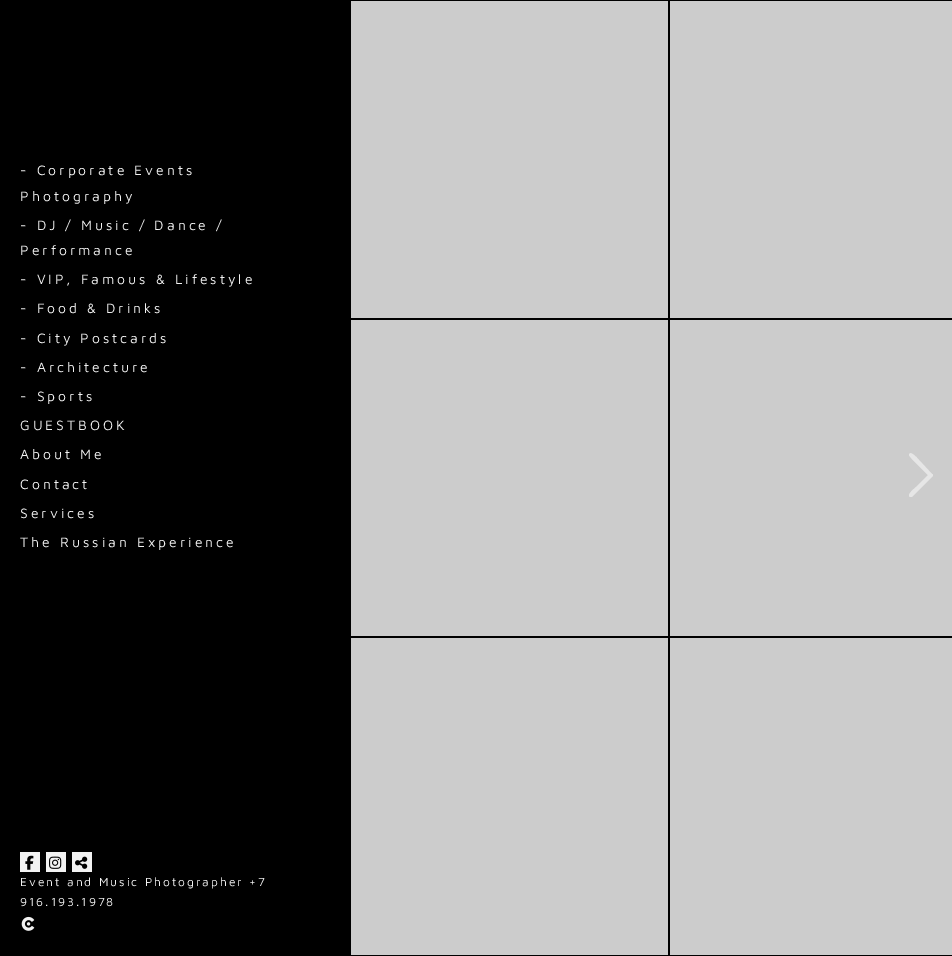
%!PS
<< /PageSize [952 956] >> setpagedevice
/rgb { dup -16 bitshift 255 div exch dup -8 bitshift 255 and 255 div exch 255 and 255 div setrgbcolor } def
/font { [ exch dup neg 0 0 3 -1 roll 0 0 ] selectfont } def
/picture { 5 dict begin { /h /w /y /x /name } { exch def } forall
  gsave x y translate w h scale
  w h 8 [w 0 0 h 0 0] name (r) file false 3 colorimage grestore end } def
0 956 translate 1 -1 scale
4 setmiterlimit
16#000000 rgb
0 0 952 956 rectfill
/MavenPro-Regular 14 font
16#F2F2F2 rgb
20 175 moveto 3 0 (- Corporate Events) ashow
20 201 moveto 3 0 (Photography) ashow
20 230 moveto 3 0 (- DJ / Music / Dance /) ashow
20 255 moveto 3 0 (Performance) ashow
20 284 moveto 3 0 (- VIP, Famous & Lifestyle) ashow
20 313 moveto 3 0 (- Food & Drinks) ashow
20 343 moveto 3 0 (- City Postcards) ashow
20 372 moveto 3 0 (- Architecture) ashow
20 401 moveto 3 0 (- Sports) ashow
20 430 moveto 3 0 (GUESTBOOK) ashow
20 459 moveto 3 0 (About Me) ashow
20 489 moveto 3 0 (Contact) ashow
20 518 moveto 3 0 (Services) ashow
20 547 moveto 3 0 (The Russian Experience) ashow
20 852 20 20 rectfill
(pic1.raw) 25 855 9 15 picture
46 852 20 20 rectfill
(pic2.raw) 49 856 13 13 picture
72 852 20 20 rectfill
(pic3.raw) 75 856 13 13 picture
/MavenPro-Regular 12 font
20 886 moveto 2 0 (Event and Music Photographer +7) ashow
20 906 moveto 2 0 (916.193.1978) ashow
(pic4.raw) 21 916 14 15 picture
16#CCCCCC rgb
351 1 317 317 rectfill
670 1 282 317 rectfill
351 320 317 316 rectfill
670 320 282 316 rectfill
351 638 317 317 rectfill
670 638 282 317 rectfill
16#E6E6E6 rgb
932 474 moveto 933 474 933 475 933 476 curveto 912 497 lineto 910 497 lineto 906 495 915 488 916 487 curveto 928 475 lineto 926 473 909 457 909 455 curveto 910 449 919 460 919 460 curveto closepath fill
showpage
